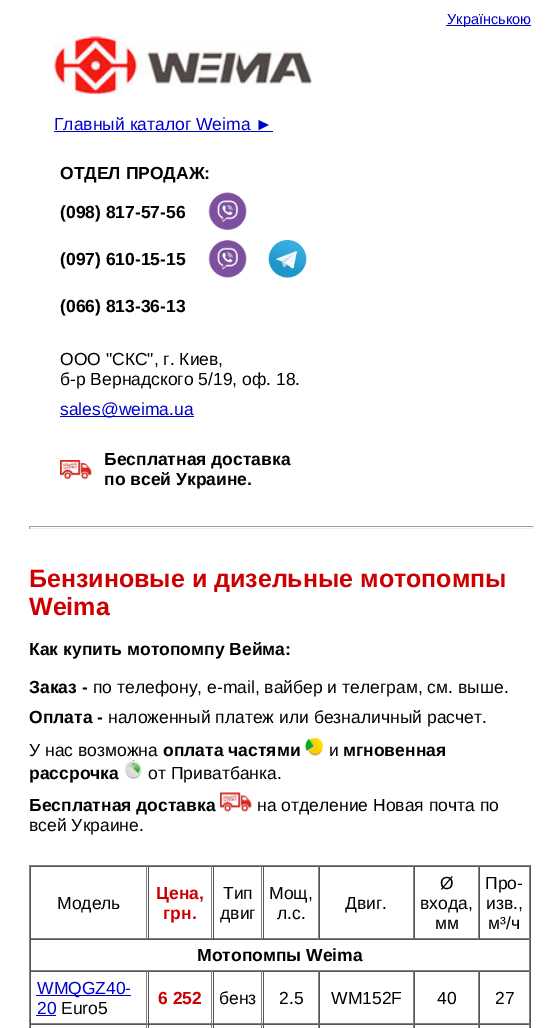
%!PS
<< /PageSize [560 1028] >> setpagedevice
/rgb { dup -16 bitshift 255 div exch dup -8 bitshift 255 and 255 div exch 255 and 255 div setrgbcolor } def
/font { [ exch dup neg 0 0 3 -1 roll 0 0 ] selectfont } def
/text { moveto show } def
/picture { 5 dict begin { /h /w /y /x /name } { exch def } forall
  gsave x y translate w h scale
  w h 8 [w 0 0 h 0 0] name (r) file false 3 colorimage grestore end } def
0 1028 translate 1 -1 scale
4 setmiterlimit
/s1 { /LiberationSans-Regular 14.5 font 16#0000CC rgb } def
/s2 { /LiberationSans-Regular 17.5 font 16#0000CC rgb } def
/s3 { /LiberationSans-Bold 17.5 font 16#000000 rgb } def
/s4 { /LiberationSans-Regular 17.5 font 16#000000 rgb } def
/s5 { /LiberationSans-Bold 25 font 16#CC0000 rgb } def
/s6 { /LiberationSans-Bold 17.5 font 16#CC0000 rgb } def
16#FFFFFF rgb
0 0 560 1028 rectfill
16#0000CC rgb
446 25 85 1 rectfill
s1
(Українською) 447 24 text
(pic1.raw) 53 36 259 58 picture
s2
(Главный каталог Weima ►) 54 130 text
54 131 219 1 rectfill
s3
(ОТДЕЛ ПРОДАЖ:) 60 179 text
(\(098\) 817-57-56) 60 218 text
(pic2.raw) 208 192 39 38 picture
(\(097\) 610-15-15) 60 265 text
(pic3.raw) 208 240 39 38 picture
(pic4.raw) 268 240 39 38 picture
(\(066\) 813-36-13) 60 312 text
s4
(ООО "СКС", г. Киев,) 60 365 text
(б-р Вернадского 5/19, оф. 18.) 60 385 text
16#0000CC rgb
60 416 134 1 rectfill
(sales@weima.ua) 60 415 text
(pic5.raw) 60 460 32 19 picture
s3
(Бесплатная доставка) 104 465 text
(по всей Украине.) 104 485 text
16#9F9F9F rgb
29 526 505 1 rectfill
16#EEEEEE rgb
533 526 1 3 rectfill
29 528 505 1 rectfill
16#9F9F9F rgb
29 526 1 3 rectfill
s5
(Бензиновые и дизельные мотопомпы) 29 587 text
(Weima) 29 615 text
s3
(Как купить мотопомпу Вейма:) 29 655 text
(Заказ -) 29 693 text
s4
(по телефону, e-mail, вайбер и телеграм, см. выше.) 93 693 text
s3
(Оплата -) 29 723 text
s4
(наложенный платеж или безналичный расчет.) 108 723 text
(У нас возможна) 29 756 text
s3
(оплата частями) 163 756 text
(pic6.raw) 305 737 18 20 picture
s4
(и) 329 756 text
s3
(мгновенная) 343 756 text
(рассрочка) 29 779 text
(pic7.raw) 124 760 19 19 picture
s4
(от Приватбанка.) 148 779 text
s3
(Бесплатная доставка) 29 811 text
(pic8.raw) 220 792 32 20 picture
s4
(на отделение Новая почта по) 257 811 text
(всей Украине.) 29 831 text
16#808080 rgb
29 865 502 1 rectfill
16#555555 rgb
530 865 1 163 rectfill
16#808080 rgb
29 865 1 163 rectfill
16#555555 rgb
30 866 500 1 rectfill
16#808080 rgb
146 866 1 73 rectfill
30 938 118 1 rectfill
16#555555 rgb
30 866 1 73 rectfill
s4
(Модель) 57 909 text
16#808080 rgb
211 866 1 73 rectfill
148 938 65 1 rectfill
16#555555 rgb
148 866 1 73 rectfill
s6
(Цена,) 156 899 text
(грн.) 163 919 text
16#808080 rgb
261 866 1 73 rectfill
213 938 50 1 rectfill
16#555555 rgb
213 866 1 73 rectfill
s4
(Тип) 223 899 text
(двиг) 220 919 text
16#808080 rgb
318 866 1 73 rectfill
263 938 56 1 rectfill
16#555555 rgb
263 866 1 73 rectfill
s4
(Мощ,) 269 899 text
(л.с.) 277 919 text
16#808080 rgb
413 866 1 73 rectfill
319 938 95 1 rectfill
16#555555 rgb
319 866 1 73 rectfill
s4
(Двиг.) 345 909 text
16#808080 rgb
478 866 1 73 rectfill
414 938 65 1 rectfill
16#555555 rgb
414 866 1 73 rectfill
s4
(Ø) 440 889 text
(входа,) 420 909 text
(мм) 435 929 text
16#808080 rgb
529 866 1 73 rectfill
479 938 51 1 rectfill
16#555555 rgb
479 866 1 73 rectfill
s4
(Про-) 485 889 text
(изв.,) 486 909 text
(м³/ч) 488 929 text
16#555555 rgb
30 939 500 1 rectfill
16#808080 rgb
529 939 1 32 rectfill
30 970 500 1 rectfill
16#555555 rgb
30 939 1 32 rectfill
s3
(Мотопомпы Weima) 197 961 text
16#555555 rgb
30 971 500 1 rectfill
16#808080 rgb
146 971 1 53 rectfill
30 1023 118 1 rectfill
16#555555 rgb
30 971 1 53 rectfill
16#0000CC rgb
36 995 95 1 rectfill
s2
(WMQGZ40-) 37 994 text
(20) 37 1014 text
36 1015 20 1 rectfill
s4
(Euro5) 61 1014 text
16#808080 rgb
211 971 1 53 rectfill
148 1023 65 1 rectfill
16#555555 rgb
148 971 1 53 rectfill
s6
(6 252) 158 1004 text
16#808080 rgb
261 971 1 53 rectfill
213 1023 50 1 rectfill
16#555555 rgb
213 971 1 53 rectfill
s4
(бенз) 219 1004 text
16#808080 rgb
318 971 1 53 rectfill
263 1023 56 1 rectfill
16#555555 rgb
263 971 1 53 rectfill
s4
(2.5) 279 1004 text
16#808080 rgb
413 971 1 53 rectfill
319 1023 95 1 rectfill
16#555555 rgb
319 971 1 53 rectfill
s4
(WM152F) 331 1004 text
16#808080 rgb
478 971 1 53 rectfill
414 1023 65 1 rectfill
16#555555 rgb
414 971 1 53 rectfill
s4
(40) 437 1004 text
16#808080 rgb
529 971 1 53 rectfill
479 1023 51 1 rectfill
16#555555 rgb
479 971 1 53 rectfill
s4
(27) 495 1004 text
16#555555 rgb
30 1024 500 1 rectfill
16#808080 rgb
146 1024 1 4 rectfill
16#555555 rgb
30 1024 1 4 rectfill
16#808080 rgb
211 1024 1 4 rectfill
16#555555 rgb
148 1024 1 4 rectfill
16#808080 rgb
261 1024 1 4 rectfill
16#555555 rgb
213 1024 1 4 rectfill
16#808080 rgb
318 1024 1 4 rectfill
16#555555 rgb
263 1024 1 4 rectfill
16#808080 rgb
413 1024 1 4 rectfill
16#555555 rgb
319 1024 1 4 rectfill
16#808080 rgb
478 1024 1 4 rectfill
16#555555 rgb
414 1024 1 4 rectfill
16#808080 rgb
529 1024 1 4 rectfill
16#555555 rgb
479 1024 1 4 rectfill
showpage
